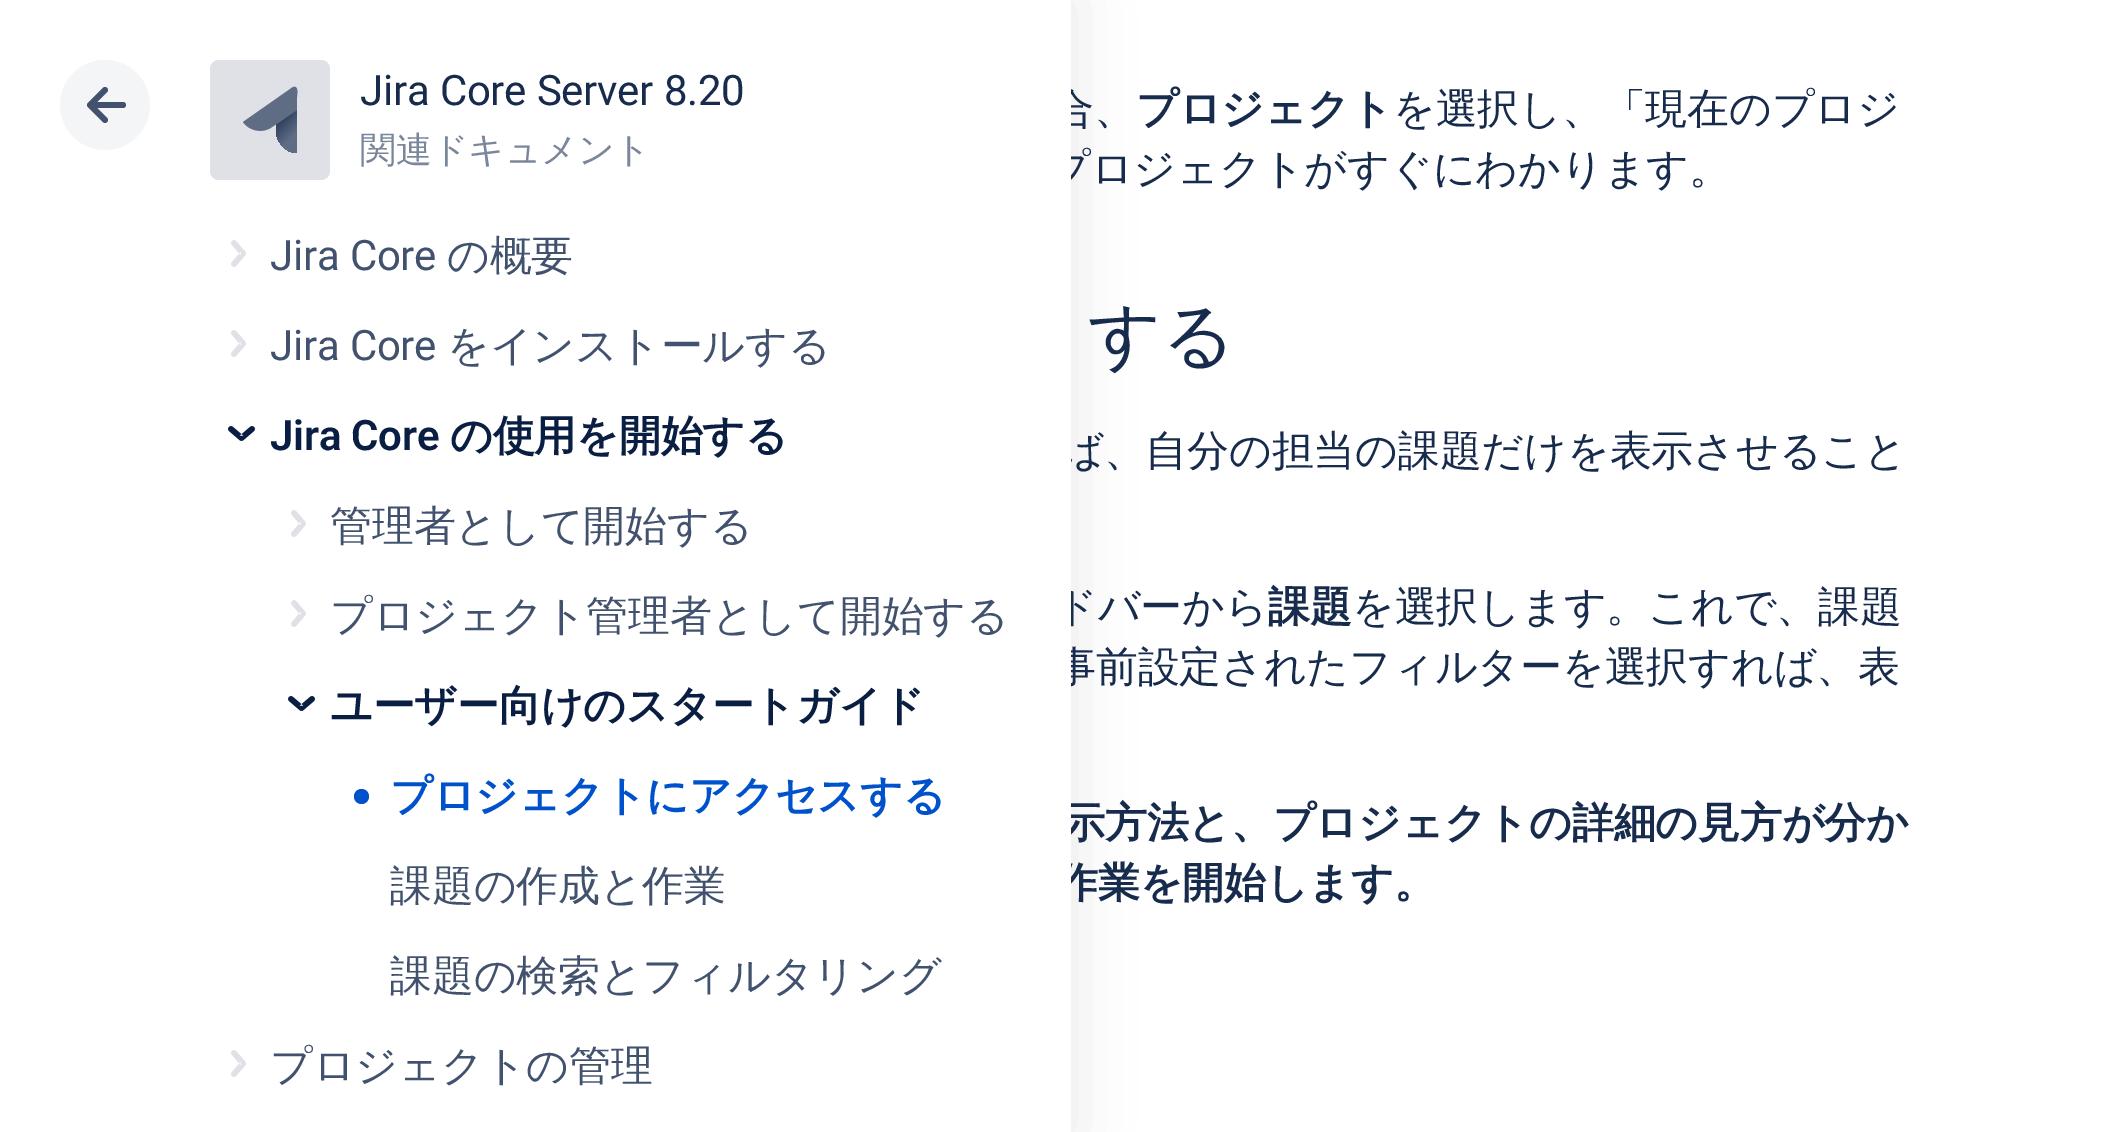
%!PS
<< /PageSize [2128 1132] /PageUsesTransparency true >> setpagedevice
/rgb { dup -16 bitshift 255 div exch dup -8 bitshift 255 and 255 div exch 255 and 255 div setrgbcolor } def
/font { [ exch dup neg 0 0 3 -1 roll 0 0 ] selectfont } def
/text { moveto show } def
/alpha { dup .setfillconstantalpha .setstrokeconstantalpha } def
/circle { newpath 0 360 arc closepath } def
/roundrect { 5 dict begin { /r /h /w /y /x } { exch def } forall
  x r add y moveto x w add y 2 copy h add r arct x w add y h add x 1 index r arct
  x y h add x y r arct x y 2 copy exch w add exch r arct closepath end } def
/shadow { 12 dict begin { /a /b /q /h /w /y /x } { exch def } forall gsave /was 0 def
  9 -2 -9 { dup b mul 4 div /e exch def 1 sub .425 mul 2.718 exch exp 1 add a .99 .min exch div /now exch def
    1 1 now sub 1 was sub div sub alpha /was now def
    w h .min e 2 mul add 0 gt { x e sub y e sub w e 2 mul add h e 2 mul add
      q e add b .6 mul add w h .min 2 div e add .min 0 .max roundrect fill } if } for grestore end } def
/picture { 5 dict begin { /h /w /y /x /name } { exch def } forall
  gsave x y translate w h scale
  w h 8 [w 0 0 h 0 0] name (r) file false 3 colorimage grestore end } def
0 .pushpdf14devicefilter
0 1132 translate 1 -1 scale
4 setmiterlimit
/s1 { /WenQuanYiZenHei-Medium 72 font 16#172B4D rgb } def
16#FFFFFF rgb
0 0 2128 1132 rectfill
16#161616 rgb
0 0 1071 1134 0 30 0.1 shadow
/WenQuanYiZenHei-Medium 42 font
16#172B4D rgb
1052 123 moveto -0.25 0 (合、) ashow
1048 183 moveto -0.25 0 (プロジェクトがすぐにわかります。) ashow
1061 465 moveto -0.25 0 (ば、自分の担当の課題だけを表示させること) ashow
1055 621 moveto -0.25 0 (ドバーから) ashow
1054 681 moveto -0.25 0 (事前設定されたフィルターを選択すれば、表) ashow
/WenQuanYiZenHei-Bold 42 font
1063 837 moveto -0.25 0 (示方法と、プロジェクトの詳細の見方が分か) ashow
1056 897 moveto -0.25 0 (作業を開始します。) ashow
16#FFFFFF rgb
0 0 1071 1132 rectfill
16#F4F5F7 rgb
105 105 45 circle fill
16#42526E rgb
90 102 36 6 3 roundrect fill
6 setlinewidth
1 setlinecap
1 setlinejoin
105 120 moveto 90 105 lineto 105 90 lineto stroke
16#DFE1E6 rgb
210 60 120 120 9 roundrect fill
gsave 276 131 moveto 276 143 286 153 297 153 curveto 297 110 lineto 276 125 lineto closepath clip newpath
<< /ShadingType 2 /ColorSpace /DeviceRGB /Coords [280 119 295 133] /Extend [true true] /Function << /FunctionType 3 /Domain [0 1] /Functions [<< /FunctionType 2 /Domain [0 1] /C0 [0.204 0.271 0.388] /C1 [0.204 0.271 0.388] /N 1 >> << /FunctionType 2 /Domain [0 1] /C0 [0.204 0.271 0.388] /C1 [0.369 0.424 0.518] /N 1 >>] /Bounds [0.17] /Encode [0 1 0 1] >> >> shfill grestore
16#5E6C84 rgb
297 110 moveto 297 97 lineto 297 95 299 85 293 87 curveto 243 122 lineto 249 131 263 134 272 127 curveto closepath fill
/Roboto-Regular 42 font
16#172B4D rgb
360 105 moveto -0.25 0 (Jira Core Server 8.20) ashow
/WenQuanYiZenHei-Medium 36 font
16#7A869A rgb
360 162 moveto -0.25 0 (関連ドキュメント) ashow
(pic1.raw) 231 240 15 27 picture
/Roboto-Regular 42 font
16#42526E rgb
270 270 moveto -0.25 0 (Jira Core) ashow
/WenQuanYiZenHei-Medium 42 font
447 270 moveto -0.25 0 (の概要) ashow
(pic1.raw) 231 330 15 27 picture
/Roboto-Regular 42 font
270 360 moveto -0.25 0 (Jira Core) ashow
/WenQuanYiZenHei-Medium 42 font
447 360 moveto -0.25 0 (をインストールする) ashow
(pic2.raw) 228 426 27 15 picture
/Roboto-SemiBold 42 font
16#091E42 rgb
270 450 moveto -0.25 0 (Jira Core) ashow
/WenQuanYiZenHei-Bold 42 font
450 450 moveto -0.25 0 (の使用を開始する) ashow
(pic1.raw) 291 510 15 27 picture
/WenQuanYiZenHei-Medium 42 font
16#42526E rgb
330 540 moveto -0.25 0 (管理者として開始する) ashow
(pic1.raw) 291 600 15 27 picture
330 630 moveto -0.25 0 (プロジェクト管理者として開始する) ashow
(pic2.raw) 288 696 27 15 picture
/WenQuanYiZenHei-Bold 42 font
16#091E42 rgb
330 720 moveto -0.25 0 (ユーザー向けのスタートガイド) ashow
16#0052CC rgb
361.5 796.5 7.5 circle fill
390 810 moveto -0.25 0 (プロジェクトにアクセスする) ashow
/WenQuanYiZenHei-Medium 42 font
16#42526E rgb
390 900 moveto -0.25 0 (課題の作成と作業) ashow
390 990 moveto -0.25 0 (課題の検索とフィルタリング) ashow
(pic1.raw) 231 1050 15 27 picture
270 1080 moveto -0.25 0 (プロジェクトの管理) ashow
/WenQuanYiZenHei-Bold 42 font
16#172B4D rgb
1136 123 moveto -0.25 0 (プロジェクト) ashow
/WenQuanYiZenHei-Medium 42 font
1393 123 moveto -0.25 0 (を選択し、「現在のプロジ) ashow
s1
(する) 1088 360 text
/WenQuanYiZenHei-Bold 42 font
1268 621 moveto -0.25 0 (課題) ashow
/WenQuanYiZenHei-Medium 42 font
1352 621 moveto -0.25 0 (を選択します。これで、課題) ashow
.poppdf14devicefilter showpage
